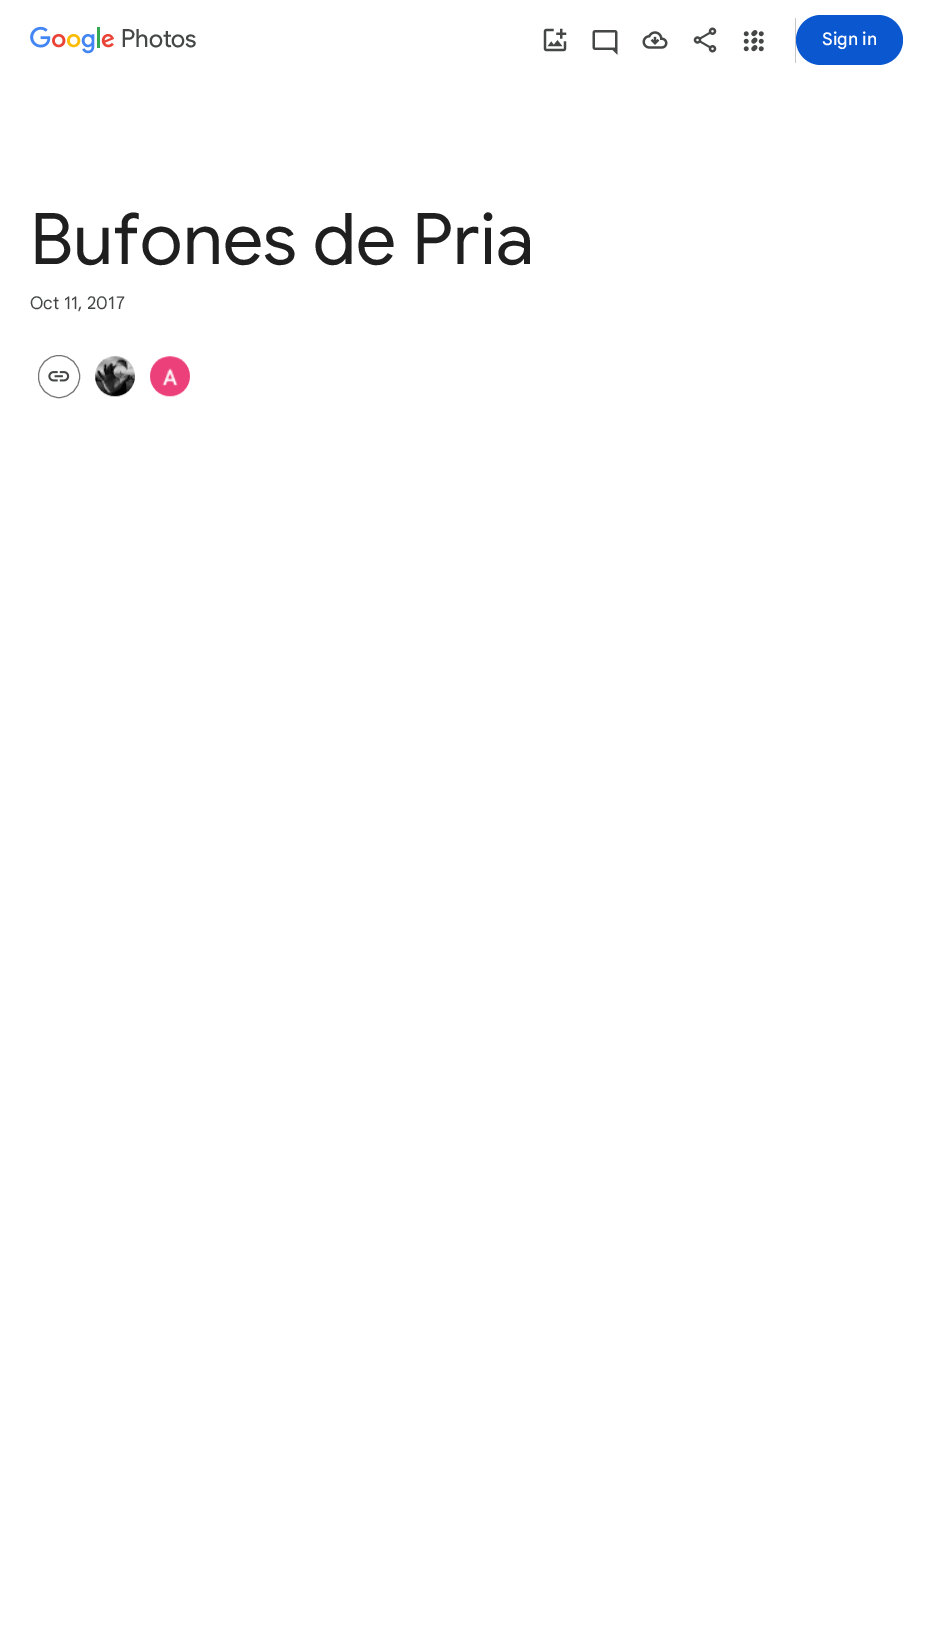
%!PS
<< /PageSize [947 1642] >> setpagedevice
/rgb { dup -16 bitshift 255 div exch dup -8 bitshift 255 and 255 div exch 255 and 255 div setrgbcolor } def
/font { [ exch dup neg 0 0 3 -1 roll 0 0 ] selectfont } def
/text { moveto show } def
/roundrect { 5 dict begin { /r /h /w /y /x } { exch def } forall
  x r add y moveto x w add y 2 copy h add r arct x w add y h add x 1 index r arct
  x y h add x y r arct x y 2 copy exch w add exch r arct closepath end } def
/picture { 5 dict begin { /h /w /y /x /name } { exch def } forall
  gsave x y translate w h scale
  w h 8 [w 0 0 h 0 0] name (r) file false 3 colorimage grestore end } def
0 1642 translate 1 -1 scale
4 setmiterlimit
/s1 { /ProductSans-Regular 25 font 16#444746 rgb } def
/s2 { /GoogleSans-Regular 71.25 font 16#1F1F1F rgb } def
/s3 { /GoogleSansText-Regular 17.5 font 16#444746 rgb } def
/s4 { /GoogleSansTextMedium-Medium 17.5 font 16#FFFFFF rgb } def
16#FFFFFF rgb
0 0 947 1642 rectfill
(pic1.raw) 30 26 84 28 picture
s1
(Photos) 121 47 text
(pic2.raw) 543 28 24 24 picture
(pic3.raw) 592 30 26 25 picture
(pic4.raw) 642 31 26 18 picture
(pic5.raw) 693 27 24 26 picture
(pic6.raw) 752 30 6 20 picture
16#C4C7C5 rgb
795 18 1 45 rectfill
s2
(Bufones de Pria) 30 264 text
s3
(Oct 11, 2017) 30 309 text
16#747775 rgb
38.5 355.5 41 42 20.5 roundrect stroke
(pic7.raw) 48 371 22 11 picture
(pic8.raw) 95 356 40 41 picture
(pic9.raw) 150 356 40 41 picture
(pic10.raw) 743 31 21 21 picture
16#0B57D0 rgb
796 15 107 50 25 roundrect fill
s4
(Sign in) 822 45 text
showpage
